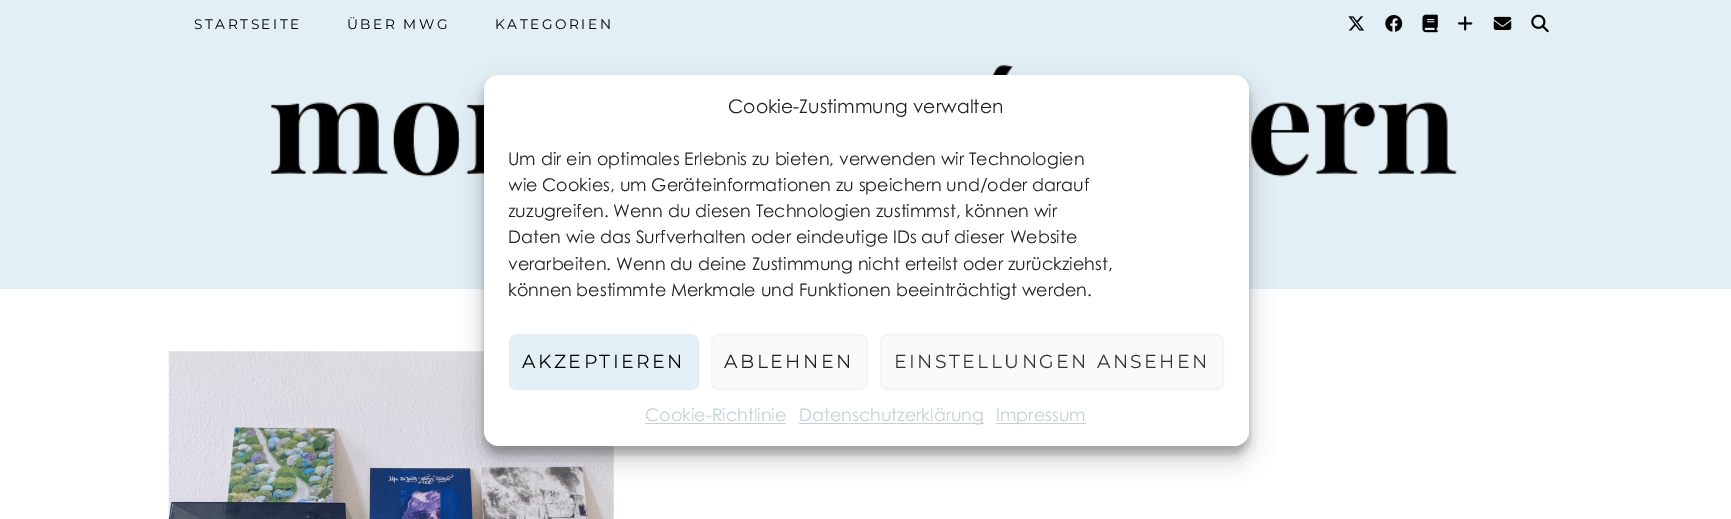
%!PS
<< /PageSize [1731 519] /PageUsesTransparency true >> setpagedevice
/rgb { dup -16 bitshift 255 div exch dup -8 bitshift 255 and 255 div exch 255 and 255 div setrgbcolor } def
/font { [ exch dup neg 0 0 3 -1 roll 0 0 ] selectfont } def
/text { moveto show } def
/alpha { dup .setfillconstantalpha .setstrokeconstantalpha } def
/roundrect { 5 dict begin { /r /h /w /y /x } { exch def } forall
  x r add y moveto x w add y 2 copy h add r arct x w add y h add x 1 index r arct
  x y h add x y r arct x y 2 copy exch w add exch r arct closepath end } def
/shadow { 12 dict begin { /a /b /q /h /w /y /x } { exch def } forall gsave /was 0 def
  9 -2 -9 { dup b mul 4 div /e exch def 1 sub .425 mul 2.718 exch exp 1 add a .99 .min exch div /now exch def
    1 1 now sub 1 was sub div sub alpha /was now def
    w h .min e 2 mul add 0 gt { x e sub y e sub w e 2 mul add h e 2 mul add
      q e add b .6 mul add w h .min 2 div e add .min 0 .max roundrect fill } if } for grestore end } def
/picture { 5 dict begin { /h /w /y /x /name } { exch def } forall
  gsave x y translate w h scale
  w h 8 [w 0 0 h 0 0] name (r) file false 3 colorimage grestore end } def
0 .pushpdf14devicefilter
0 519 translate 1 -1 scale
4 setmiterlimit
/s1 { /CenturyGothic-Regular 18.75 font 16#222222 rgb } def
/s2 { /CenturyGothic-Regular 17.5 font 16#222222 rgb } def
/s3 { /CenturyGothic-Regular 17.5 font 16#C5CFD6 rgb } def
16#FFFFFF rgb
0 0 1731 519 rectfill
16#E2EFF5 rgb
0 0 1731 289 rectfill
(pic1.raw) 271 64 1186 113 picture
/Montserrat-Thin 13.75 font
16#000000 rgb
194 29 moveto 2.5 0 (STARTSEITE) ashow
347 29 moveto 2.5 0 (ÜBER MWG) ashow
495 29 moveto 2.5 0 (KATEGORIEN) ashow
(pic2.raw) 1348 16 16 15 picture
(pic3.raw) 1385 15 18 17 picture
(pic4.raw) 1422 14 16 19 picture
(pic5.raw) 1458 16 15 15 picture
(pic6.raw) 1493 16 19 14 picture
(pic7.raw) 1531 14 18 19 picture
(pic8.raw) 168 351 446 168 picture
484 83 765 371 15 4 0.23 shadow
484 88 765 371 15 12.5 0.19 shadow
16#FFFFFF rgb
484 75 765 371 15 roundrect fill
s1
(Cookie-Zustimmung verwalten) 728 113 text
s2
(Um dir ein optimales Erlebnis zu bieten, verwenden wir Technologien) 508 165 text
gsave
509 145 715 164 rectclip
(wie Cookies, um Geräteinformationen zu speichern und/oder darauf) 508 191 text
(zuzugreifen. Wenn du diesen Technologien zustimmst, können wir) 508 217 text
grestore
(Daten wie das Surfverhalten oder eindeutige IDs auf dieser Website) 508 243 text
(verarbeiten. Wenn du deine Zustimmung nicht erteilst oder zurückziehst,) 508 270 text
(können bestimmte Merkmale und Funktionen beeinträchtigt werden.) 508 296 text
16#E2EFF5 rgb
509.5 334.5 189 55 7.5 roundrect gsave fill grestore
stroke
/Montserrat-Thin 18.75 font
16#000000 rgb
522 368 moveto 2.5 0 (AKZEPTIEREN) ashow
16#F9F9F9 rgb
711.5 334.5 156 55 7.5 roundrect gsave fill grestore
16#F2F2F2 rgb
stroke
16#222222 rgb
724 368 moveto 2.5 0 (ABLEHNEN) ashow
16#F9F9F9 rgb
880.5 334.5 343 55 7.5 roundrect gsave fill grestore
16#F2F2F2 rgb
stroke
16#333333 rgb
894 368 moveto 2.5 0 (EINSTELLUNGEN ANSEHEN) ashow
s3
(Cookie-Richtlinie) 645 421 text
645 423 141 1 rectfill
799 423 185 1 rectfill
(Datenschutzerklärung) 799 421 text
996 423 90 1 rectfill
(Impressum) 996 421 text
.poppdf14devicefilter showpage
